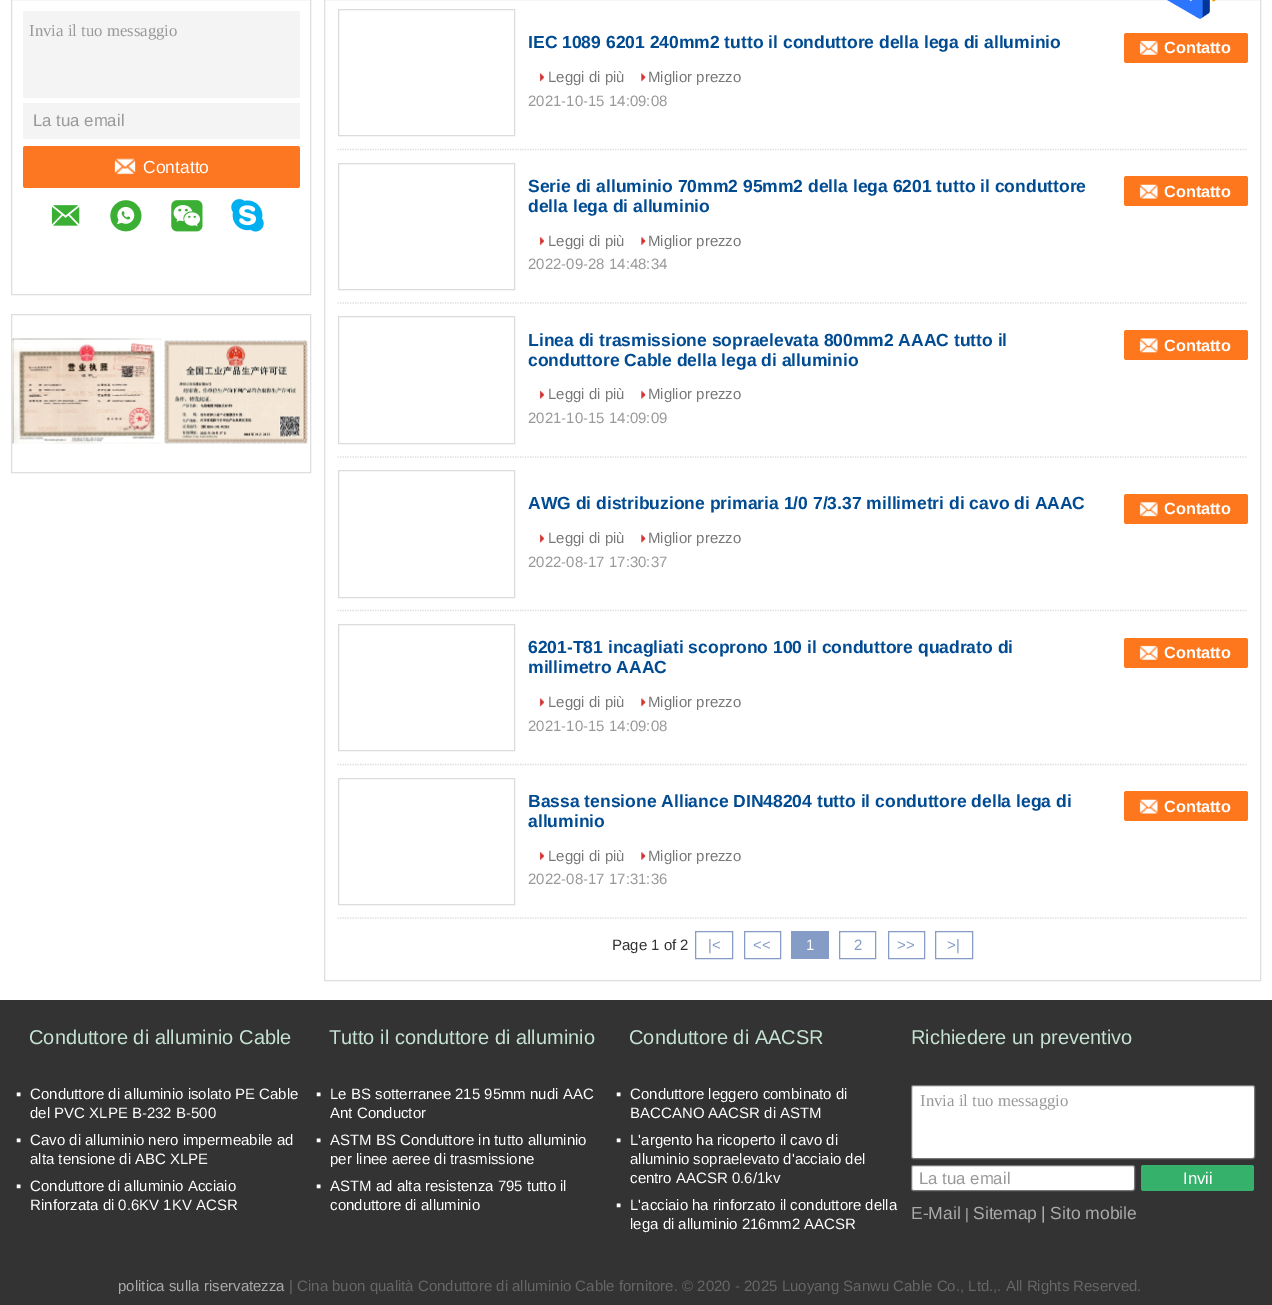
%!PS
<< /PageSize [1272 1305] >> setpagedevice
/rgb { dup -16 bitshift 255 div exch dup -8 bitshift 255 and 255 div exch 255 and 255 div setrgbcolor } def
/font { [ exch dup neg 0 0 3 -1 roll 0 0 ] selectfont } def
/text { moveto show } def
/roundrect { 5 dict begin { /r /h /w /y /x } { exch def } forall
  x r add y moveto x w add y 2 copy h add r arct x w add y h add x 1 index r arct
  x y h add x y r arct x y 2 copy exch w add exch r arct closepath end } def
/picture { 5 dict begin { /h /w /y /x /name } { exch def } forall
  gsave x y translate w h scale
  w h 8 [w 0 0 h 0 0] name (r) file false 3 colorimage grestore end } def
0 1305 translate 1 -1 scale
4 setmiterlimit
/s1 { /LiberationSerif-Regular 16.75 font 16#999999 rgb } def
/s2 { /LiberationSans-Regular 16.75 font 16#999999 rgb } def
/s3 { /LiberationSans-Regular 17.5 font 16#FFFFFF rgb } def
/s4 { /LiberationSans-Bold 17.5 font 16#004B91 rgb } def
/s5 { /LiberationSans-Bold 16.25 font 16#FFFFFF rgb } def
/s6 { /LiberationSans-Regular 15 font 16#787878 rgb } def
/s7 { /LiberationSans-Regular 15 font 16#999999 rgb } def
/s8 { /LiberationSans-Regular 15 font 16#333333 rgb } def
/s9 { /LiberationSans-Regular 15 font 16#849CC6 rgb } def
/s10 { /LiberationSans-Regular 15 font 16#FFFFFF rgb } def
/s11 { /LiberationSans-Regular 20 font 16#C5E2D2 rgb } def
/s12 { /LiberationSans-Regular 16.75 font 16#FFFFFF rgb } def
/s13 { /LiberationSans-Regular 17.5 font 16#AAAAAA rgb } def
/s14 { /LiberationSans-Regular 15 font 16#AAAAAA rgb } def
/s15 { /LiberationSans-Regular 15 font 16#666666 rgb } def
16#FFFFFF rgb
0 0 1272 1305 rectfill
16#DEDEDE rgb
324.5 -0.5 936 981 rectstroke
(pic1.raw) 1167 0 49 19 picture
11.5 -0.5 299 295 rectstroke
16#F4F4F4 rgb
23 11 277 87 rectfill
s1
(Invia il tuo messaggio) 29 36 text
16#F4F4F4 rgb
23 103 277 36 rectfill
s2
(La tua email) 33 126 text
16#FD7722 rgb
23 146 277 42 2.5 roundrect fill
(pic2.raw) 114 158 22 17 picture
s3
(Contatto) 143 173 text
(pic3.raw) 51 205 29 21 picture
(pic4.raw) 110 200 32 32 picture
(pic5.raw) 171 200 32 32 picture
(pic6.raw) 231 199 33 33 picture
16#DEDEDE rgb
11.5 314.5 299 158 rectstroke
(pic7.raw) 12 338 150 106 picture
(pic8.raw) 163 339 146 105 picture
16#DCDCDC rgb
1.2 setlinewidth
[1.25 1.25] 0 setdash
337.5 149.5 moveto 1247.5 149.5 lineto stroke
1 setlinewidth
[] 0 setdash
338.5 9.5 176 126 rectstroke
s4
(IEC 1089 6201 240mm2 tutto il conduttore della lega di alluminio) 528 48 text
16#FF771C rgb
1124 33 124 30 2.5 roundrect fill
(pic9.raw) 1139 40 19 15 picture
s5
(Contatto) 1164 53 text
(pic10.raw) 539 73 5 9 picture
s6
(Leggi di più) 548 82 text
(pic11.raw) 641 73 5 9 picture
(Miglior prezzo) 648 82 text
s7
(2021-10-15 14:09:08) 528 106 text
16#DCDCDC rgb
1.2 setlinewidth
[1.25 1.25] 0 setdash
337.5 303 moveto 1247.5 303 lineto stroke
1 setlinewidth
[] 0 setdash
338.5 163.5 176 126 rectstroke
s4
(Serie di alluminio 70mm2 95mm2 della lega 6201 tutto il conduttore) 528 192 text
16#FF771C rgb
1124 176 124 30 2.5 roundrect fill
(pic12.raw) 1139 184 19 15 picture
s5
(Contatto) 1164 197 text
s4
(della lega di alluminio) 528 212 text
(pic13.raw) 539 237 5 8 picture
s6
(Leggi di più) 548 246 text
(pic14.raw) 641 237 5 8 picture
(Miglior prezzo) 648 246 text
s7
(2022-09-28 14:48:34) 528 269 text
16#DCDCDC rgb
1.2 setlinewidth
[1.25 1.25] 0 setdash
337.5 457 moveto 1247.5 457 lineto stroke
1 setlinewidth
[] 0 setdash
338.5 316.5 176 127 rectstroke
s4
(Linea di trasmissione sopraelevata 800mm2 AAAC tutto il) 528 346 text
16#FF771C rgb
1124 330 124 30 2.5 roundrect fill
(pic15.raw) 1139 338 19 15 picture
s5
(Contatto) 1164 351 text
s4
(conduttore Cable della lega di alluminio) 528 366 text
(pic16.raw) 539 390 5 9 picture
s6
(Leggi di più) 548 399 text
(pic17.raw) 641 390 5 9 picture
(Miglior prezzo) 648 399 text
s7
(2021-10-15 14:09:09) 528 423 text
16#DCDCDC rgb
1.2 setlinewidth
[1.25 1.25] 0 setdash
337.5 610.5 moveto 1247.5 610.5 lineto stroke
1 setlinewidth
[] 0 setdash
338.5 470.5 176 127 rectstroke
s4
(AWG di distribuzione primaria 1/0 7/3.37 millimetri di cavo di AAAC) 528 509 text
16#FF771C rgb
1124 494 124 30 2.5 roundrect fill
(pic18.raw) 1139 502 19 15 picture
s5
(Contatto) 1164 514 text
(pic19.raw) 539 534 5 9 picture
s6
(Leggi di più) 548 543 text
(pic20.raw) 641 534 5 9 picture
(Miglior prezzo) 648 543 text
s7
(2022-08-17 17:30:37) 528 567 text
16#DCDCDC rgb
1.2 setlinewidth
[1.25 1.25] 0 setdash
337.5 764.5 moveto 1247.5 764.5 lineto stroke
1 setlinewidth
[] 0 setdash
338.5 624.5 176 126 rectstroke
s4
(6201-T81 incagliati scoprono 100 il conduttore quadrato di) 528 653 text
16#FF771C rgb
1124 638 124 30 2.5 roundrect fill
(pic9.raw) 1139 645 19 15 picture
s5
(Contatto) 1164 658 text
s4
(millimetro AAAC) 528 673 text
(pic10.raw) 539 698 5 9 picture
s6
(Leggi di più) 548 707 text
(pic11.raw) 641 698 5 9 picture
(Miglior prezzo) 648 707 text
s7
(2021-10-15 14:09:08) 528 731 text
16#DCDCDC rgb
1.2 setlinewidth
[1.25 1.25] 0 setdash
337.5 918 moveto 1247.5 918 lineto stroke
1 setlinewidth
[] 0 setdash
338.5 778.5 176 126 rectstroke
s4
(Bassa tensione Alliance DIN48204 tutto il conduttore della lega di) 528 807 text
16#FF771C rgb
1124 791 124 30 2.5 roundrect fill
(pic12.raw) 1139 799 19 15 picture
s5
(Contatto) 1164 812 text
s4
(alluminio) 528 827 text
(pic13.raw) 539 852 5 8 picture
s6
(Leggi di più) 548 861 text
(pic14.raw) 641 852 5 8 picture
(Miglior prezzo) 648 861 text
s7
(2022-08-17 17:31:36) 528 884 text
s8
(Page 1 of 2) 612 950 text
16#849CC6 rgb
695.5 931.5 37 27 rectstroke
(|<) 708 950 text
744.5 931.5 36 27 rectstroke
(<<) 753 950 text
791 931 38 28 rectfill
s10
(1) 806 950 text
16#849CC6 rgb
839.5 931.5 36 27 rectstroke
(2) 854 950 text
888.5 931.5 36 27 rectstroke
(>>) 897 950 text
935.5 931.5 37 27 rectstroke
(>|) 947 950 text
16#333333 rgb
0 1000 1272 305 rectfill
s11
(Conduttore di alluminio Cable) 29 1044 text
s10
(▪) 16 1099 text
(Conduttore di alluminio isolato PE Cable) 30 1099 text
(del PVC XLPE B-232 B-500) 30 1118 text
(▪) 16 1145 text
(Cavo di alluminio nero impermeabile ad) 30 1145 text
(alta tensione di ABC XLPE) 30 1164 text
(▪) 16 1191 text
(Conduttore di alluminio Acciaio) 30 1191 text
(Rinforzata di 0.6KV 1KV ACSR) 30 1210 text
s11
(Tutto il conduttore di alluminio) 329 1044 text
s10
(▪) 316 1099 text
(Le BS sotterranee 215 95mm nudi AAC) 330 1099 text
(Ant Conductor) 330 1118 text
(▪) 316 1145 text
(ASTM BS Conduttore in tutto alluminio) 330 1145 text
(per linee aeree di trasmissione) 330 1164 text
(▪) 316 1191 text
(ASTM ad alta resistenza 795 tutto il) 330 1191 text
(conduttore di alluminio) 330 1210 text
s11
(Conduttore di AACSR) 629 1044 text
s10
(▪) 616 1099 text
(Conduttore leggero combinato di) 630 1099 text
(BACCANO AACSR di ASTM) 630 1118 text
(▪) 616 1145 text
(L'argento ha ricoperto il cavo di) 630 1145 text
(alluminio sopraelevato d'acciaio del) 630 1164 text
(centro AACSR 0.6/1kv) 630 1183 text
(▪) 616 1210 text
(L'acciaio ha rinforzato il conduttore della) 630 1210 text
(lega di alluminio 216mm2 AACSR) 630 1229 text
s11
(Richiedere un preventivo) 911 1044 text
16#FFFFFF rgb
911.5 1085.5 343 73 2 roundrect gsave fill grestore
16#767676 rgb
stroke
s1
(Invia il tuo messaggio) 920 1106 text
16#FFFFFF rgb
911.5 1165.5 223 25 2 roundrect gsave fill grestore
16#767676 rgb
stroke
s2
(La tua email) 919 1184 text
16#35B16C rgb
1141 1165 113 26 2.5 roundrect fill
s12
(Invii) 1183 1184 text
s13
(E-Mail) 911 1219 text
s14
(|) 965 1219 text
s13
(Sitemap) 973 1219 text
(| Sito mobile) 1041 1219 text
s14
(politica sulla riservatezza) 118 1291 text
s15
(| Cina buon qualità Conduttore di alluminio Cable fornitore. © 2020 - 2025 Luoyang Sanwu Cable Co., Ltd.,. All Rights Reserved.) 289 1291 text
showpage
